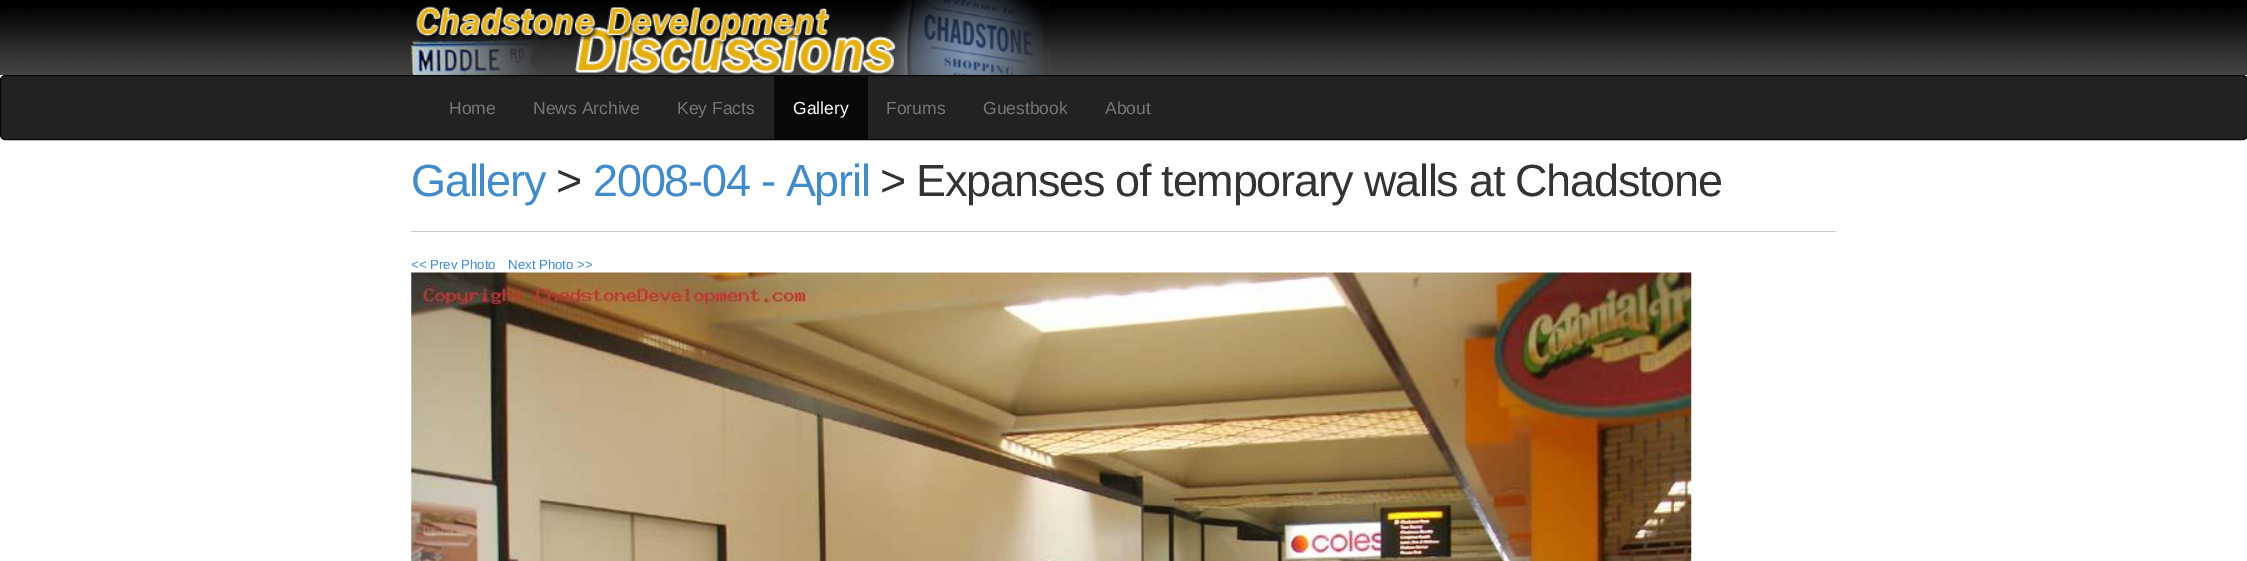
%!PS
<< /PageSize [2247 561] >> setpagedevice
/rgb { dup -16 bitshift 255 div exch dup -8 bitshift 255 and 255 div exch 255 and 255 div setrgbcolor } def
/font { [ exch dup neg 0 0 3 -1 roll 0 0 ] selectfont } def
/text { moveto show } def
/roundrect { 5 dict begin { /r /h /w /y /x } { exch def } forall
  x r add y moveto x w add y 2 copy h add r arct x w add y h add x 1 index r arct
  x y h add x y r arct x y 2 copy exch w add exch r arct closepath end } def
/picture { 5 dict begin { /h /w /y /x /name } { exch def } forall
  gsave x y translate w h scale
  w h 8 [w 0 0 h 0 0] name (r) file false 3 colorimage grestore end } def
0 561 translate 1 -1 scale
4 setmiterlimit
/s1 { /LiberationSans-Regular 17.5 font 16#777777 rgb } def
/s2 { /LiberationSans-Regular 17.5 font 16#FFFFFF rgb } def
/s3 { /LiberationSans-Regular 13.25 font 16#428BCA rgb } def
16#FFFFFF rgb
0 0 2247 561 rectfill
16#000000 rgb
0 0 2247 8 rectfill
(pic1.raw) 0 8 2247 67 picture
(pic2.raw) 411 0 640 75 picture
16#222222 rgb
0.5 75.5 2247 64 4.5 roundrect gsave fill grestore
16#080808 rgb
stroke
s1
(Home) 449 114 text
(News Archive) 533 114 text
(Key Facts) 677 114 text
16#080808 rgb
774 76 94 63 rectfill
s2
(Gallery) 793 114 text
s1
(Forums) 886 114 text
(Guestbook) 983 114 text
(About) 1105 114 text
/LiberationSans-Regular 45 font
16#428BCA rgb
411 196 moveto -1.25 0 (Gallery) ashow
16#333333 rgb
556 196 moveto -1.25 0 (>) ashow
16#428BCA rgb
593 196 moveto -1.25 0 (2008-04 - April) ashow
16#333333 rgb
880 196 moveto -1.25 0 (> Expanses of temporary walls at Chadstone) ashow
16#CCCCCC rgb
411 231 1425 1 rectfill
s3
(<< Prev Photo) 411 269 text
(Next Photo >>) 508 269 text
(pic3.raw) 411 272 1281 289 picture
showpage
